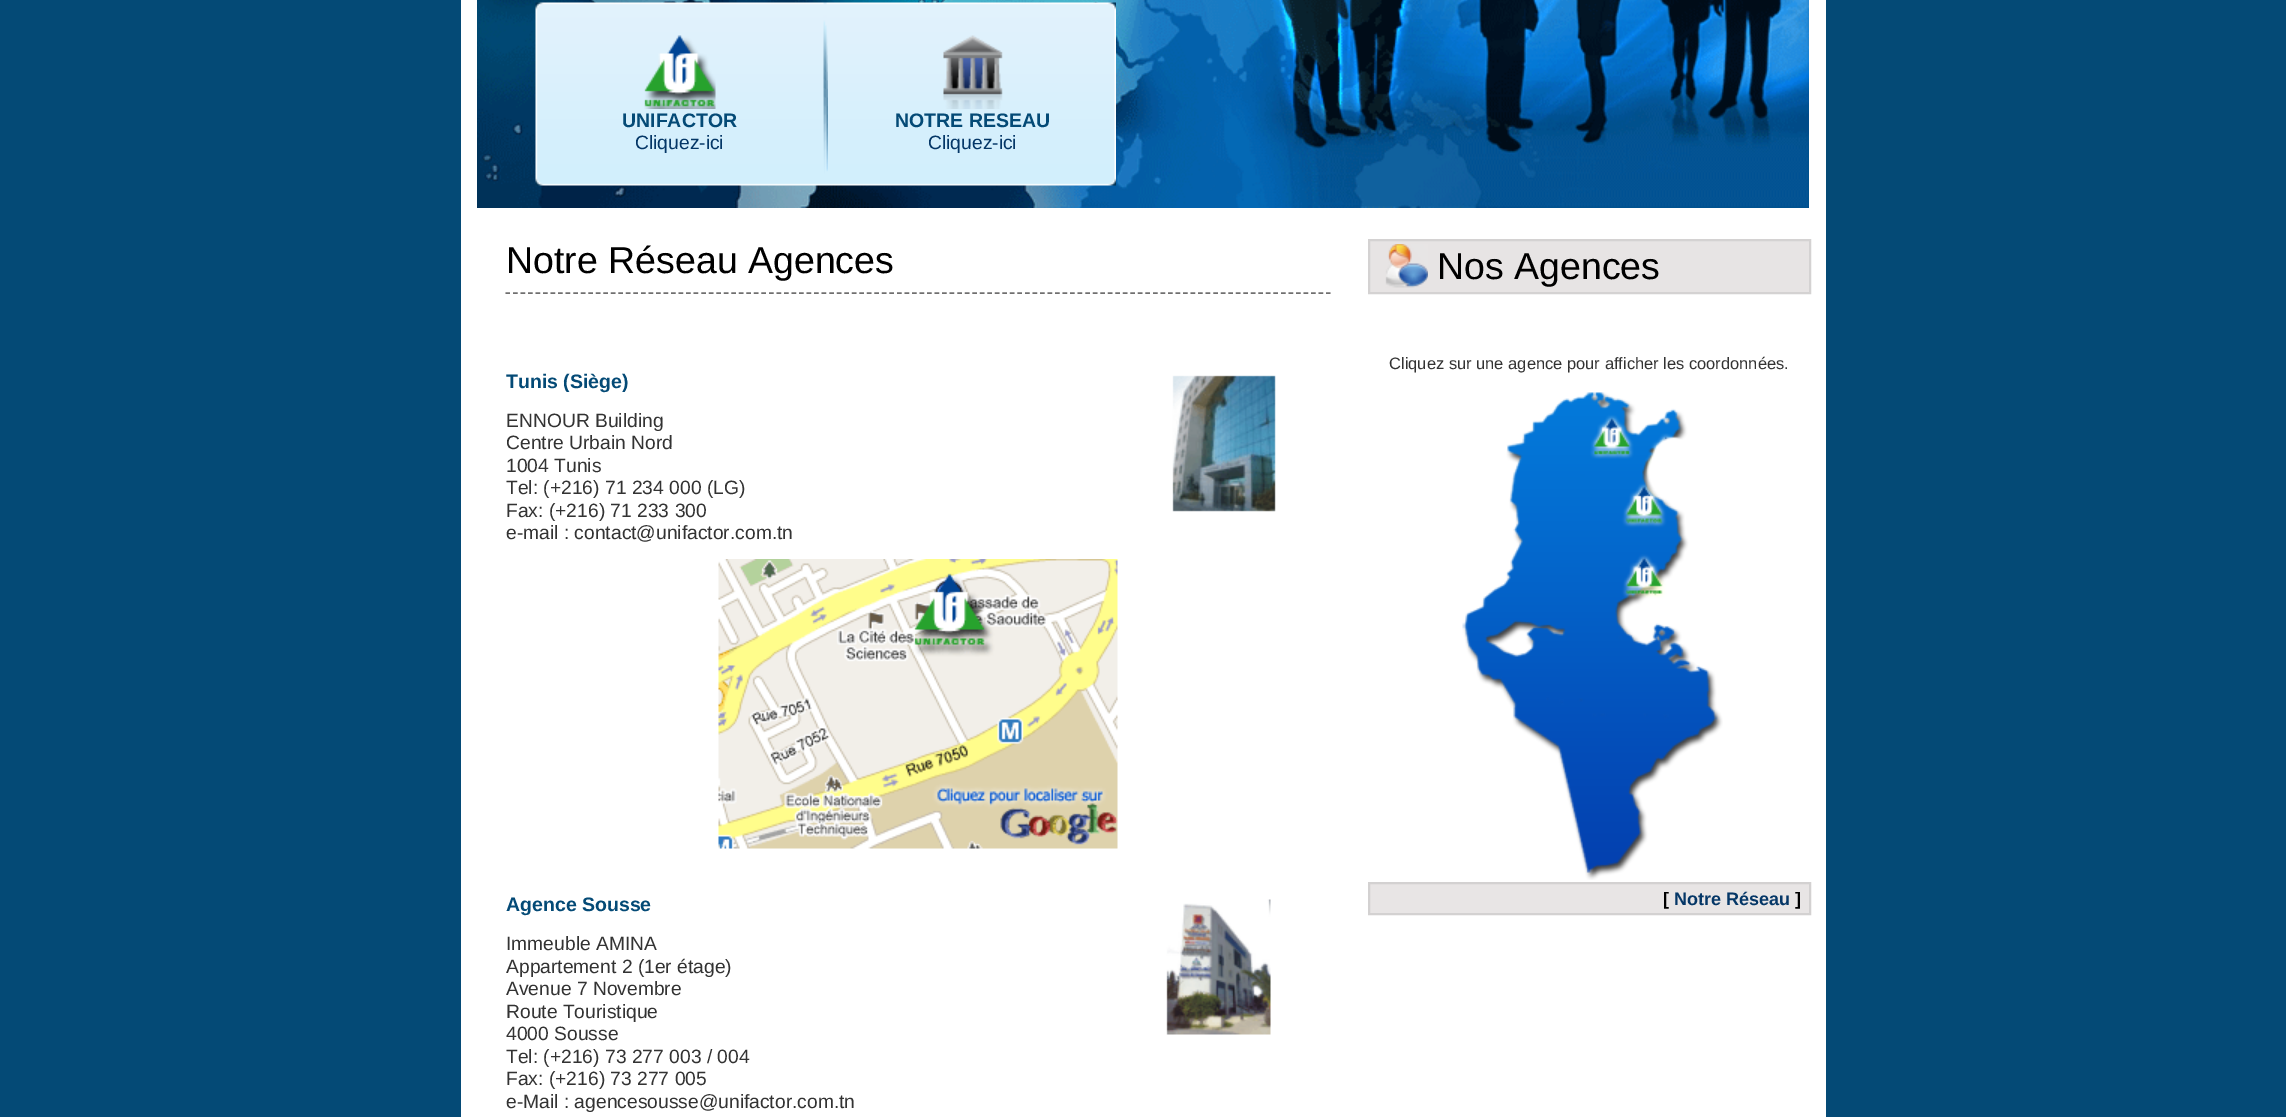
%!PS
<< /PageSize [2286 1117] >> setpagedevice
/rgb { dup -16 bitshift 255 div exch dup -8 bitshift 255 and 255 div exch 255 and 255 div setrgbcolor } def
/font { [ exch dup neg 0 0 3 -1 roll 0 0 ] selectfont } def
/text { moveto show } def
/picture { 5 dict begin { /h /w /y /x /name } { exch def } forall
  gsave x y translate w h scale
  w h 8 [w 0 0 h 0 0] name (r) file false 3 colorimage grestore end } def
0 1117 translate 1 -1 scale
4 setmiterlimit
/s1 { /LiberationSans-Bold 19.5 font 16#044A76 rgb } def
/s2 { /LiberationSans-Regular 19.25 font 16#053767 rgb } def
/s3 { /LiberationSans-Regular 37.5 font 16#000000 rgb } def
/s4 { /LiberationSans-Regular 19.25 font 16#333333 rgb } def
/s5 { /LiberationSans-Regular 16.5 font 16#333333 rgb } def
/s6 { /LiberationSans-Bold 18 font 16#000000 rgb } def
/s7 { /LiberationSans-Bold 18 font 16#053767 rgb } def
16#044A76 rgb
0 0 2286 1117 rectfill
16#FFFFFF rgb
461 0 1365 1117 rectfill
(pic1.raw) 477 0 1332 208 picture
(pic2.raw) 535 2 581 184 picture
(pic3.raw) 644 35 72 74 picture
s1
(UNIFACTOR) 622 127 text
s2
(Cliquez-ici) 635 149 text
(pic4.raw) 825 25 3 149 picture
(pic5.raw) 943 35 60 74 picture
s1
(NOTRE RESEAU) 895 127 text
s2
(Cliquez-ici) 928 149 text
16#706F6F rgb
1.5 setlinewidth
[4.5 3.03] 0 setdash
505.5 293 moveto 1330.5 293 lineto stroke
s3
(Notre Réseau Agences) 506 273 text
s1
(Tunis \(Siège\)) 506 388 text
s4
(ENNOUR Building) 506 427 text
(Centre Urbain Nord) 506 449 text
(1004 Tunis) 506 472 text
(Tel: \(+216\) 71 234 000 \(LG\)) 506 494 text
(Fax: \(+216\) 71 233 300) 506 517 text
(e-mail : contact@unifactor.com.tn) 506 539 text
(pic6.raw) 1172 375 104 137 picture
(pic7.raw) 718 559 400 290 picture
s1
(Agence Sousse) 506 911 text
s4
(Immeuble AMINA) 506 950 text
(Appartement 2 \(1er étage\)) 506 973 text
(Avenue 7 Novembre) 506 995 text
(Route Touristique) 506 1018 text
(4000 Sousse) 506 1040 text
(Tel: \(+216\) 73 277 003 / 004) 506 1063 text
(Fax: \(+216\) 73 277 005) 506 1085 text
(e-Mail : agencesousse@unifactor.com.tn) 506 1108 text
(pic8.raw) 1166 899 105 136 picture
16#E7E4E4 rgb
1370 241 439 51 rectfill
(pic9.raw) 1385 244 43 44 picture
16#D4D2D2 rgb
2 setlinewidth
[] 0 setdash
1369 240 441 53 rectstroke
s3
(Nos Agences) 1437 279 text
s5
(Cliquez sur une agence pour afficher les coordonnées.) 1389 369 text
(pic10.raw) 1462 392 261 488 picture
16#E8E5E5 rgb
1369 883 moveto 1810 883 lineto 1810 914 lineto 1369 914 lineto closepath gsave fill grestore
16#D3D1D1 rgb
stroke
s6
([) 1663 905 text
s7
(Notre Réseau) 1674 905 text
s6
(]) 1795 905 text
showpage
